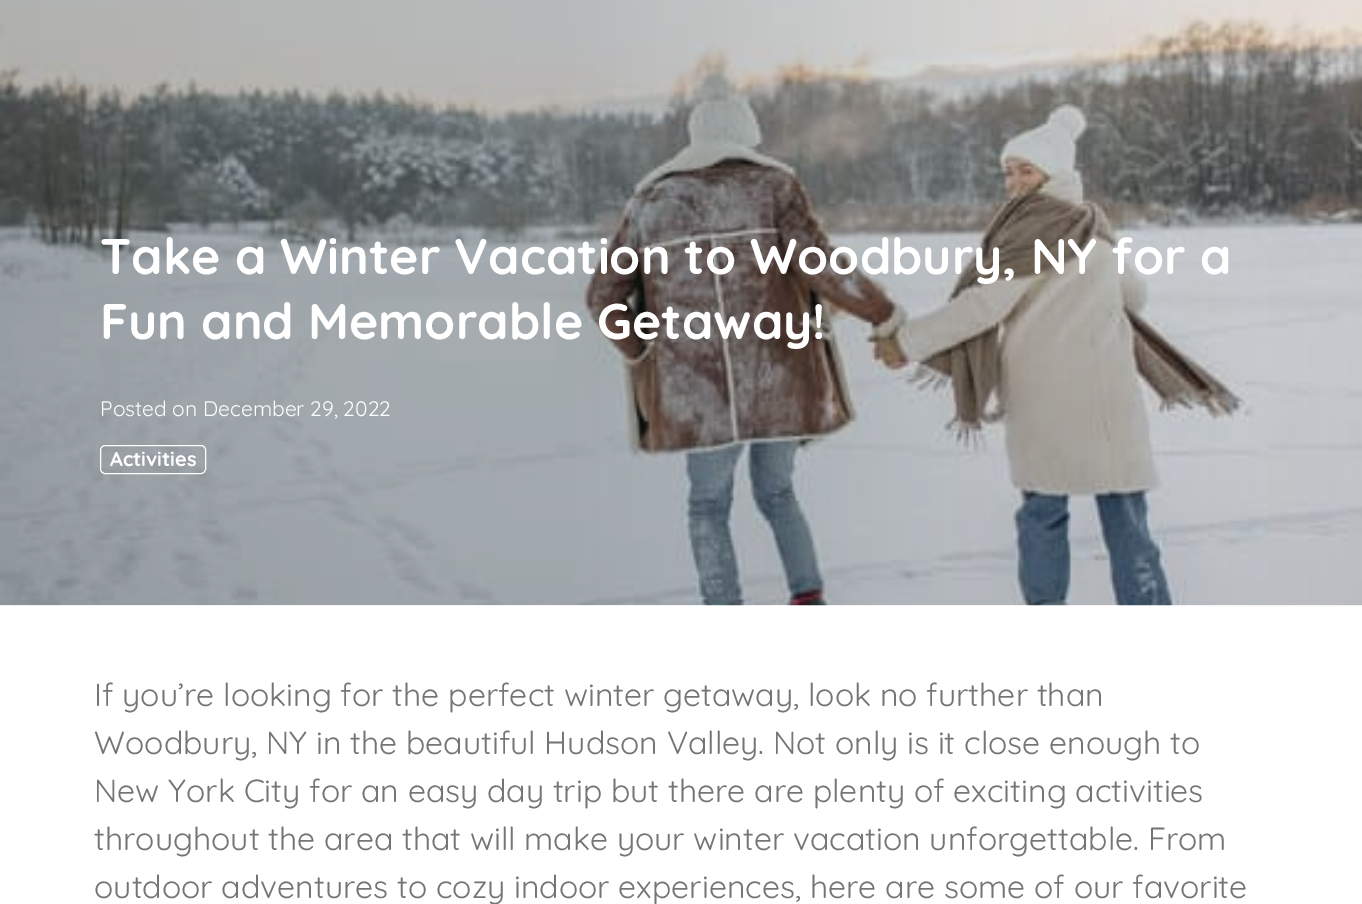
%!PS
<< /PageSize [1362 904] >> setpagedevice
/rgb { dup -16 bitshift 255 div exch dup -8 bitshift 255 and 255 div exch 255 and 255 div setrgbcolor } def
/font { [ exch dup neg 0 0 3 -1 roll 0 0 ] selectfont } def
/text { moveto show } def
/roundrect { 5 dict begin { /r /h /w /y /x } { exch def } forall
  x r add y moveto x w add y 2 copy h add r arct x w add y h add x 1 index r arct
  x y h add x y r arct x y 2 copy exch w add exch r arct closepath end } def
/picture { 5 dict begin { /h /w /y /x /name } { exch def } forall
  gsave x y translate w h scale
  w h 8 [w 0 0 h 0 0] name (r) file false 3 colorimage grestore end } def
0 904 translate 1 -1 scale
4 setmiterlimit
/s1 { /Quicksand-Bold 50 font 16#FFFFFF rgb } def
/s2 { /Quicksand-Regular 21 font 16#FFFFFF rgb } def
/s3 { /Quicksand-Bold 20 font 16#FFFFFF rgb } def
/s4 { /Quicksand-Regular 32 font 16#757575 rgb } def
16#FFFFFF rgb
0 0 1362 904 rectfill
(pic1.raw) 0 0 1362 606 picture
s1
(Take a Winter Vacation to Woodbury, NY for a) 100 274 text
(Fun and Memorable Getaway!) 100 339 text
s2
(Posted on December 29, 2022) 100 416 text
100.5 445.5 105 28 4.5 roundrect stroke
s3
(Activities) 110 466 text
s4
(If you’re looking for the perfect winter getaway, look no further than) 94 706 text
(Woodbury, NY in the beautiful Hudson Valley. Not only is it close enough to) 94 754 text
(New York City for an easy day trip but there are plenty of exciting activities) 94 802 text
(throughout the area that will make your winter vacation unforgettable. From) 94 850 text
(outdoor adventures to cozy indoor experiences, here are some of our favorite) 94 898 text
showpage
